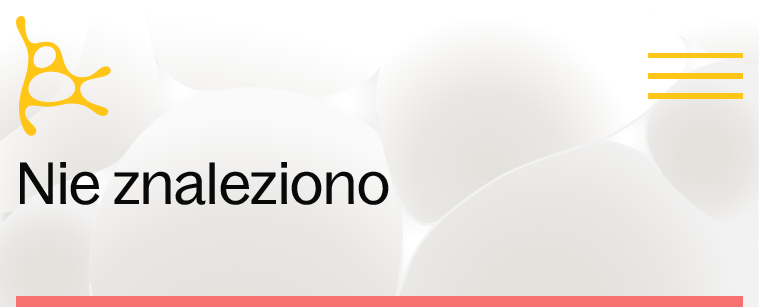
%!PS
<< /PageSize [759 307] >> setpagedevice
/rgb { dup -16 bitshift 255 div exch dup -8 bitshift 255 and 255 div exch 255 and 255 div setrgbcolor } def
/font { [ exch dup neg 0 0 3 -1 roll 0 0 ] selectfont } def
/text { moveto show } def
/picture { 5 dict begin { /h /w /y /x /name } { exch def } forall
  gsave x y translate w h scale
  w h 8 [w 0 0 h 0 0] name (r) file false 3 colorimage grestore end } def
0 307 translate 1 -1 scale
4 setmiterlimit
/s1 { /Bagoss-Regular 58 font 16#090909 rgb } def
16#FFFFFF rgb
0 0 759 307 rectfill
(pic1.raw) 0 12 759 295 picture
(pic2.raw) 16 16 95 120 picture
16#FFC517 rgb
648 53 95 5 rectfill
648 73 95 6 rectfill
648 93 95 6 rectfill
s1
(Nie znaleziono) 16 204 text
16#F87171 rgb
16 296 727 11 rectfill
showpage
